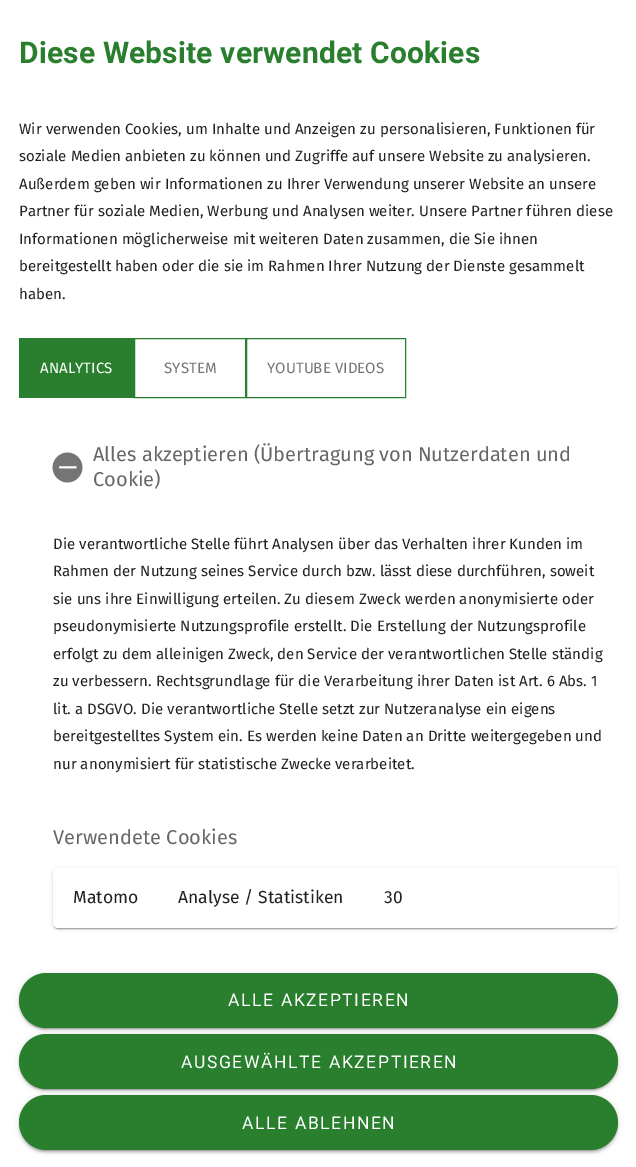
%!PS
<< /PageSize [636 1167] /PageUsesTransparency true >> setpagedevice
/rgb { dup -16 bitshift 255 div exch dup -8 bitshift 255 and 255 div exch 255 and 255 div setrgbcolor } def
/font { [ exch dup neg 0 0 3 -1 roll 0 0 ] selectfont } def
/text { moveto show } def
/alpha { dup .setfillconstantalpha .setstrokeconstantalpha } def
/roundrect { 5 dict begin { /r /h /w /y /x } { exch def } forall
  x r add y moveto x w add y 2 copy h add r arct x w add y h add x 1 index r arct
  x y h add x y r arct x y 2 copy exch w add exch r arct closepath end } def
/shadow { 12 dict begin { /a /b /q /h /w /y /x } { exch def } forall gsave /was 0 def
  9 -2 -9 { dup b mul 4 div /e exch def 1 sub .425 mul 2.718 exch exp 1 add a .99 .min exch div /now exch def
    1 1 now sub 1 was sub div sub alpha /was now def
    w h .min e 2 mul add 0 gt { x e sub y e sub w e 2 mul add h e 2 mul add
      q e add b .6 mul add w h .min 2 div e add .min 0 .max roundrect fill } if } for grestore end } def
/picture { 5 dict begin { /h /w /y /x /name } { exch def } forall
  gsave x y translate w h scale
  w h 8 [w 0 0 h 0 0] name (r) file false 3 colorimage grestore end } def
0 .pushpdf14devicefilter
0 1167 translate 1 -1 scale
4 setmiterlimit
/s1 { /FiraSans-Regular 20 font 16#666666 rgb } def
16#FFFFFF rgb
0 0 636 1167 rectfill
/Roboto-Bold 30 font
16#297F2E rgb
19 63 moveto 0.15 0 (Diese Website verwendet Cookies) ashow
/FiraSans-Regular 15 font
16#212121 rgb
19 134 moveto 0.05 0 (Wir verwenden Cookies, um Inhalte und Anzeigen zu personalisieren, Funktionen für) ashow
19 161 moveto 0.05 0 (soziale Medien anbieten zu können und Zugriffe auf unsere Website zu analysieren.) ashow
19 189 moveto 0.05 0 (Außerdem geben wir Informationen zu Ihrer Verwendung unserer Website an unsere) ashow
19 216 moveto 0.05 0 (Partner für soziale Medien, Werbung und Analysen weiter. Unsere Partner führen diese) ashow
19 244 moveto 0.05 0 (Informationen möglicherweise mit weiteren Daten zusammen, die Sie ihnen) ashow
19 271 moveto 0.05 0 (bereitgestellt haben oder die sie im Rahmen Ihrer Nutzung der Dienste gesammelt) ashow
19 299 moveto 0.05 0 (haben.) ashow
16#297F2E rgb
19 338 115 60 rectfill
16#FFFFFF rgb
40 373 moveto 0.05 0 (ANALYTICS) ashow
16#297F2E rgb
134.5 338.5 111 59 rectstroke
16#757575 rgb
164 373 moveto 0.05 0 (SYSTEM) ashow
16#297F2E rgb
246.5 338.5 159 59 rectstroke
16#757575 rgb
267 373 moveto 0.05 0 (YOUTUBE VIDEOS) ashow
(pic1.raw) 52 452 31 31 picture
s1
(Alles akzeptieren \(Übertragung von Nutzerdaten und) 93 461 text
(Cookie\)) 93 486 text
/FiraSans-Regular 15 font
16#212121 rgb
53 549 moveto 0.05 0 (Die verantwortliche Stelle führt Analysen über das Verhalten ihrer Kunden im) ashow
53 576 moveto 0.05 0 (Rahmen der Nutzung seines Service durch bzw. lässt diese durchführen, soweit) ashow
53 604 moveto 0.05 0 (sie uns ihre Einwilligung erteilen. Zu diesem Zweck werden anonymisierte oder) ashow
53 631 moveto 0.05 0 (pseudonymisierte Nutzungsprofile erstellt. Die Erstellung der Nutzungsprofile) ashow
53 659 moveto 0.05 0 (erfolgt zu dem alleinigen Zweck, den Service der verantwortlichen Stelle ständig) ashow
53 686 moveto 0.05 0 (zu verbessern. Rechtsgrundlage für die Verarbeitung ihrer Daten ist Art. 6 Abs. 1) ashow
53 714 moveto 0.05 0 (lit. a DSGVO. Die verantwortliche Stelle setzt zur Nutzeranalyse ein eigens) ashow
53 741 moveto 0.05 0 (bereitgestelltes System ein. Es werden keine Daten an Dritte weitergegeben und) ashow
53 769 moveto 0.05 0 (nur anonymisiert für statistische Zwecke verarbeitet.) ashow
/FiraSans-Regular 20 font
16#666666 rgb
53 844 moveto 0.05 0 (Verwendete Cookies) ashow
gsave
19 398 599 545 rectclip
16#000000 rgb
53 869 565 60 5 2 0.12 shadow
grestore
16#000000 rgb
53 869 565 60 5 0.5 0.14 shadow
54 871 562 58 4 0.5 0.2 shadow
16#FFFFFF rgb
53 868 565 60 5 roundrect fill
/FiraSans-Regular 17.5 font
16#212121 rgb
73 903 moveto 0.05 0 (Matomo) ashow
178 903 moveto 0.05 0 (Analyse / Statistiken) ashow
384 903 moveto 0.05 0 (30) ashow
16#000000 rgb
19 974 599 55 27.5 3 0.12 shadow
19 975 599 55 27.5 1 0.14 shadow
21 979 594 50 25 0.5 0.2 shadow
16#297F2E rgb
19 973 599 55 27.5 roundrect fill
/Roboto-Regular 17.5 font
16#FFFFFF rgb
228 1006 moveto 1.6 0 (ALLE AKZEPTIEREN) ashow
16#000000 rgb
19 1035 599 55 27.5 3 0.12 shadow
19 1036 599 55 27.5 1 0.14 shadow
21 1040 594 50 25 0.5 0.2 shadow
16#297F2E rgb
19 1034 599 55 27.5 roundrect fill
16#FFFFFF rgb
181 1068 moveto 1.6 0 (AUSGEWÄHLTE AKZEPTIEREN) ashow
16#000000 rgb
19 1096 599 55 27.5 3 0.12 shadow
19 1098 599 55 27.5 1 0.14 shadow
21 1101 594 50 25 0.5 0.2 shadow
16#297F2E rgb
19 1095 599 55 27.5 roundrect fill
16#FFFFFF rgb
242 1129 moveto 1.6 0 (ALLE ABLEHNEN) ashow
.poppdf14devicefilter showpage
